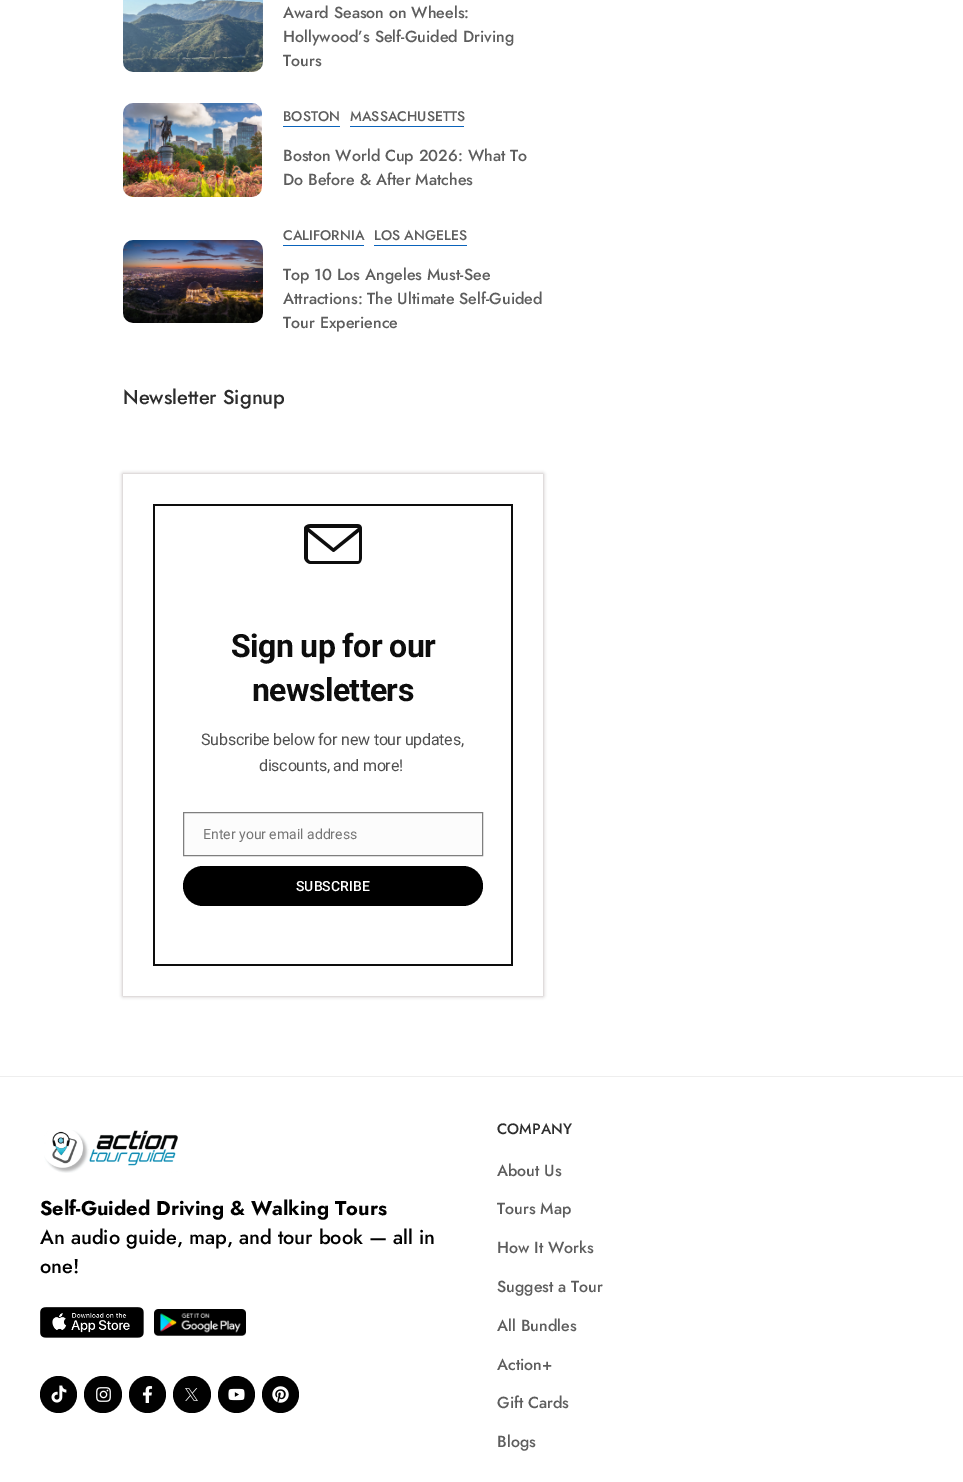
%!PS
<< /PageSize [963 1482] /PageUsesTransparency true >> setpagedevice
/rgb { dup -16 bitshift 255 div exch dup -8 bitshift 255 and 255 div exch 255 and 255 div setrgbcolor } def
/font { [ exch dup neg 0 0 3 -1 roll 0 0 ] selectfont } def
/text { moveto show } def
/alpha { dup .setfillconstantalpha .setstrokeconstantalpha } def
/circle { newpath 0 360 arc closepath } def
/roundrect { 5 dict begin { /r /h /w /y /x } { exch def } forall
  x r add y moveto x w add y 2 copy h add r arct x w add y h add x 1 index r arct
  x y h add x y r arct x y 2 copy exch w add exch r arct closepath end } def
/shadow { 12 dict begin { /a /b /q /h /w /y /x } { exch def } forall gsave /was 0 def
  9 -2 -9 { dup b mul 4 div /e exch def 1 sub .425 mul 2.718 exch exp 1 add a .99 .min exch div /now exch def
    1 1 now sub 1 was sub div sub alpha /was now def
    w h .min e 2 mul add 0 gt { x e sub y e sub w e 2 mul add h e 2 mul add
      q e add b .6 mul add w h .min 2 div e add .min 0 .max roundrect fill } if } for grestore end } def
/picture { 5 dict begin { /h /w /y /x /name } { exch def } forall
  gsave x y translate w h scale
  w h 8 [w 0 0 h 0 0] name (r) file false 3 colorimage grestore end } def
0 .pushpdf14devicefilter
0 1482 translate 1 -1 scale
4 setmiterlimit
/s1 { /Jost-Medium 16 font 16#5D5D5D rgb } def
/s2 { /Jost-Medium 14 font 16#5D5D5D rgb } def
/s3 { /Jost-Medium 20 font 16#2D2D2D rgb } def
/s4 { /Roboto-Regular 14 font 16#757575 rgb } def
/s5 { /Roboto-Medium 14 font 16#FFFFFF rgb } def
/s6 { /Jost-Bold 20 font 16#000000 rgb } def
/s7 { /Jost-Medium 20 font 16#000000 rgb } def
/s8 { /Jost-Medium 15 font 16#2D2D2D rgb } def
16#FFFFFF rgb
0 0 963 1482 rectfill
(pic1.raw) 123 0 140 72 picture
s1
(Award Season on Wheels:) 283 18 text
(Hollywood’s Self-Guided Driving) 283 42 text
(Tours) 283 66 text
(pic2.raw) 123 103 139 94 picture
s2
(BOSTON) 283 121 text
16#0A63BB rgb
283 126 57 1 rectfill
s2
(MASSACHUSETTS) 350 121 text
16#0A63BB rgb
350 126 114 1 rectfill
s1
(Boston World Cup 2026: What To) 283 161 text
(Do Before & After Matches) 283 185 text
(pic3.raw) 123 240 140 83 picture
s2
(CALIFORNIA) 283 240 text
16#0A63BB rgb
283 245 81 1 rectfill
s2
(LOS ANGELES) 374 240 text
16#0A63BB rgb
374 245 93 1 rectfill
s1
(Top 10 Los Angeles Must-See) 283 280 text
(Attractions: The Ultimate Self-Guided) 283 304 text
(Tour Experience) 283 328 text
s3
(Newsletter Signup) 123 404 text
gsave
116 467 moveto 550 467 lineto 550 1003 lineto 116 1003 lineto closepath 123 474 moveto 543 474 lineto 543 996 lineto 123 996 lineto closepath eoclip newpath
16#AFA6A6 rgb
123 474 420 522 0 2 1 shadow
grestore
16#0D0D0D rgb
153 504 360 2 rectfill
511 504 2 462 rectfill
153 504 2 293 rectfill
(pic4.raw) 304 524 58 40 picture
/Roboto-Bold 32 font
231 657 moveto -0.6 0 (Sign up for our) ashow
252 701 moveto -0.6 0 (newsletters) ashow
/Roboto-Regular 16 font
16#4F4F4F rgb
201 745 moveto -0.25 0 (Subscribe below for new tour updates,) ashow
259 771 moveto -0.25 0 (discounts, and more!) ashow
16#0D0D0D rgb
153 964 360 2 rectfill
153 797 2 169 rectfill
16#FCFCFC rgb
183.5 812.5 moveto 482.5 812.5 lineto 482.5 855.5 lineto 183.5 855.5 lineto closepath gsave fill grestore
16#7F7F7F rgb
stroke
s4
(Enter your email address) 203 839 text
16#000000 rgb
183 866 300 40 20 roundrect fill
s5
(SUBSCRIBE) 296 891 text
16#EEEEEE rgb
0 1076 963 1 rectfill
(pic5.raw) 44 1130 134 43 picture
s6
(Self-Guided Driving & Walking Tours) 40 1215 text
s7
(An audio guide, map, and tour book — all in) 40 1244 text
(one!) 40 1273 text
(pic6.raw) 40 1307 104 31 picture
(pic7.raw) 154 1309 92 27 picture
16#010101 rgb
58.5 1394.5 18.5 circle fill
(pic8.raw) 51 1385 16 18 picture
84 1376 38 37 18.5 roundrect fill
(pic9.raw) 96 1387 15 15 picture
147.5 1394.5 18.5 circle fill
(pic10.raw) 142 1386 11 17 picture
173 1376 38 37 18.5 roundrect fill
(pic11.raw) 185 1388 13 13 picture
236.5 1394.5 18.5 circle fill
(pic12.raw) 228 1388 17 13 picture
280.5 1394.5 18.5 circle fill
(pic13.raw) 272 1386 17 17 picture
s8
(COMPANY) 497 1134 text
s1
(About Us) 497 1176 text
(Tours Map) 497 1214 text
(How It Works) 497 1253 text
(Suggest a Tour) 497 1292 text
(All Bundles) 497 1331 text
(Action+) 497 1370 text
(Gift Cards) 497 1408 text
(Blogs) 497 1447 text
.poppdf14devicefilter showpage
